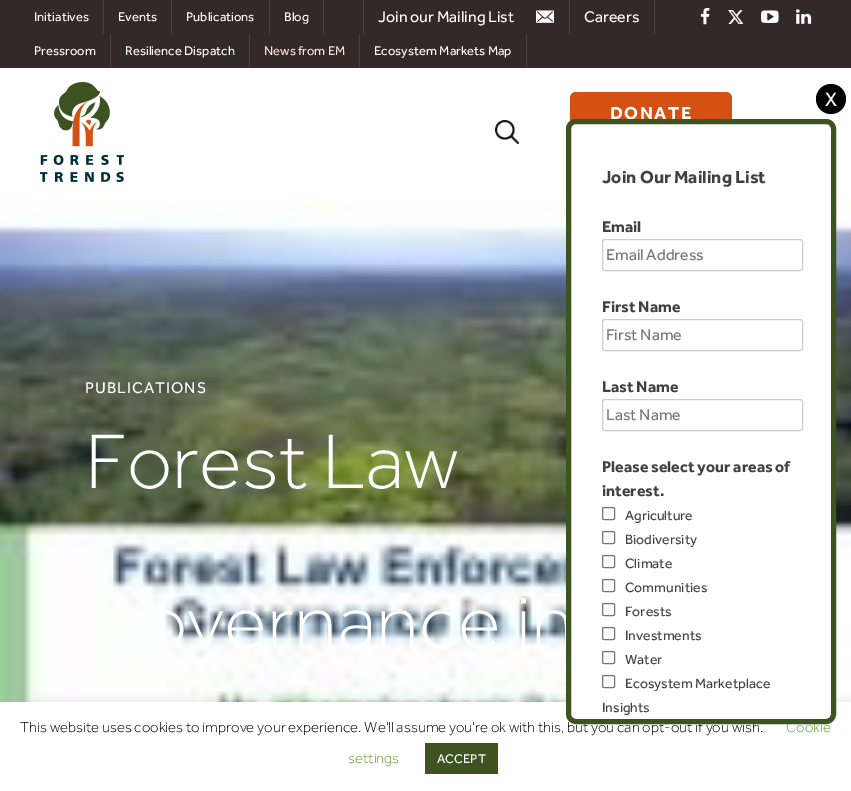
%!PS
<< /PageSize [851 791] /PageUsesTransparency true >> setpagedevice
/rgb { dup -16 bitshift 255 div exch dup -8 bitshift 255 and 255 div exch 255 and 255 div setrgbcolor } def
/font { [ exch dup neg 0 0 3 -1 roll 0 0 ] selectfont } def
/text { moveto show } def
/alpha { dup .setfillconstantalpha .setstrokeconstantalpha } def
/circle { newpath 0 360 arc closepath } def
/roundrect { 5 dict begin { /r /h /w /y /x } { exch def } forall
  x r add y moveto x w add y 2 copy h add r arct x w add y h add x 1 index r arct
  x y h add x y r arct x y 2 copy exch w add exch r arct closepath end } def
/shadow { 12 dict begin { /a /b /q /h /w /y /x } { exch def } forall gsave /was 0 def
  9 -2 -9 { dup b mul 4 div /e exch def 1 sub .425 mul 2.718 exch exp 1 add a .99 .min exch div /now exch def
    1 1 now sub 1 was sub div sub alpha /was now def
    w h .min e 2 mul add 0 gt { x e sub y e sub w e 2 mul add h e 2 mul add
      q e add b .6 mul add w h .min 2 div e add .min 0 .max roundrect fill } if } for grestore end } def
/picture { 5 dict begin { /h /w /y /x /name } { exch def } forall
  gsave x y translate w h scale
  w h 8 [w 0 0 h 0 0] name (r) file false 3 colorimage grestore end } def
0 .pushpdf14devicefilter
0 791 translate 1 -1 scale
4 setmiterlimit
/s1 { /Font-Regular 16 font 16#FFFFFF rgb } def
/s2 { /Font-Regular 13 font 16#FFFFFF rgb } def
/s3 { /Font-Regular 13 font 16#FCE3D8 rgb } def
/s4 { /Font-Light 80 font 16#FFFFFF rgb } def
/s5 { /Font-Regular 20 font 16#FFFFFF rgb } def
/s6 { /Font-Light 15 font 16#000000 rgb } def
/s7 { /Font-Light 15 font 16#62A329 rgb } def
/s8 { /Font-Bold 18 font 16#404040 rgb } def
/s9 { /Font-Bold 16 font 16#404040 rgb } def
/s10 { /Font-Regular 16 font 16#757575 rgb } def
/s11 { /Font-Regular 14 font 16#404040 rgb } def
16#FFFFFF rgb
0 0 851 791 rectfill
16#332928 rgb
0 0 851 68 rectfill
16#483F3E rgb
363 0 1 34 rectfill
s1
(Join our Mailing List) 378 22 text
(pic1.raw) 536 10 19 13 picture
16#483F3E rgb
654 0 1 34 rectfill
569 0 1 34 rectfill
s1
(Careers) 584 22 text
(pic2.raw) 700 7 10 18 picture
(pic3.raw) 728 10 15 14 picture
(pic4.raw) 761 10 18 13 picture
(pic5.raw) 796 9 16 15 picture
16#483F3E rgb
103 0 1 34 rectfill
s2
(Initiatives) 34 21 text
16#483F3E rgb
171 0 1 34 rectfill
s2
(Events) 118 21 text
16#483F3E rgb
269 0 1 34 rectfill
s2
(Publications) 186 21 text
16#483F3E rgb
323 0 1 34 rectfill
s2
(Blog) 284 21 text
16#483F3E rgb
110 34 1 34 rectfill
s2
(Pressroom) 34 55 text
16#483F3E rgb
249 34 1 34 rectfill
s2
(Resilience Dispatch) 125 55 text
16#483F3E rgb
359 34 1 34 rectfill
s3
(News from EM) 264 55 text
16#483F3E rgb
526 34 1 34 rectfill
s2
(Ecosystem Markets Map) 374 55 text
(pic6.raw) 40 82 84 100 picture
16#D55013 rgb
570 92 162 42 6 roundrect fill
/Font-Bold 18 font
16#FFFFFF rgb
610 119 moveto 1.5 0 (DONATE) ashow
(pic7.raw) 495 120 24 24 picture
(pic8.raw) 0 200 851 502 picture
/Font-Regular 16 font
85 393 moveto 1 0 (PUBLICATIONS) ashow
s4
(Forest Law) 85 488 text
(overnance in) 142 648 text
16#000000 rgb
831 99 15 circle fill
s5
(X) 825 106 text
16#ACABAB rgb
0 701 851 89 0 5 0.3 shadow
16#FFFFFF rgb
0 702 851 89 rectfill
s6
(This website uses cookies to improve your experience. We'll assume you're ok with this, but you can opt-out if you wish.) 20 732 text
s7
(Cookie) 786 732 text
16#FFFFFF rgb
568.5 121.5 265 600 7.5 roundrect gsave fill grestore
16#3D5420 rgb
5 setlinewidth
stroke
s8
(Join Our Mailing List) 602 183 text
s9
(Email) 602 232 text
16#CCCCCC rgb
1 setlinewidth
602.5 239.5 200 31 2.5 roundrect stroke
s10
(Email Address) 606 260 text
s9
(First Name) 602 312 text
16#CCCCCC rgb
602.5 319.5 200 31 2.5 roundrect stroke
s10
(First Name) 606 340 text
s9
(Last Name) 602 392 text
16#CCCCCC rgb
602.5 399.5 200 31 2.5 roundrect stroke
s10
(Last Name) 606 420 text
s9
(Please select your areas of) 602 472 text
(interest.) 602 496 text
16#767676 rgb
602.5 507.5 12 12 1.5 roundrect stroke
s11
(Agriculture) 625 520 text
16#767676 rgb
602.5 531.5 12 12 1.5 roundrect stroke
s11
(Biodiversity) 625 544 text
16#767676 rgb
602.5 555.5 12 12 1.5 roundrect stroke
s11
(Climate) 625 568 text
16#767676 rgb
602.5 579.5 12 12 1.5 roundrect stroke
s11
(Communities) 625 592 text
16#767676 rgb
602.5 603.5 12 12 1.5 roundrect stroke
s11
(Forests) 625 616 text
16#767676 rgb
602.5 627.5 12 12 1.5 roundrect stroke
s11
(Investments) 625 640 text
16#767676 rgb
602.5 651.5 12 12 1.5 roundrect stroke
s11
(Water) 625 664 text
16#767676 rgb
602.5 675.5 12 12 1.5 roundrect stroke
s11
(Ecosystem Marketplace) 625 688 text
(Insights) 602 712 text
s7
(settings) 348 763 text
16#3D5420 rgb
425 743 73 31 rectfill
s2
(ACCEPT) 437 763 text
.poppdf14devicefilter showpage
